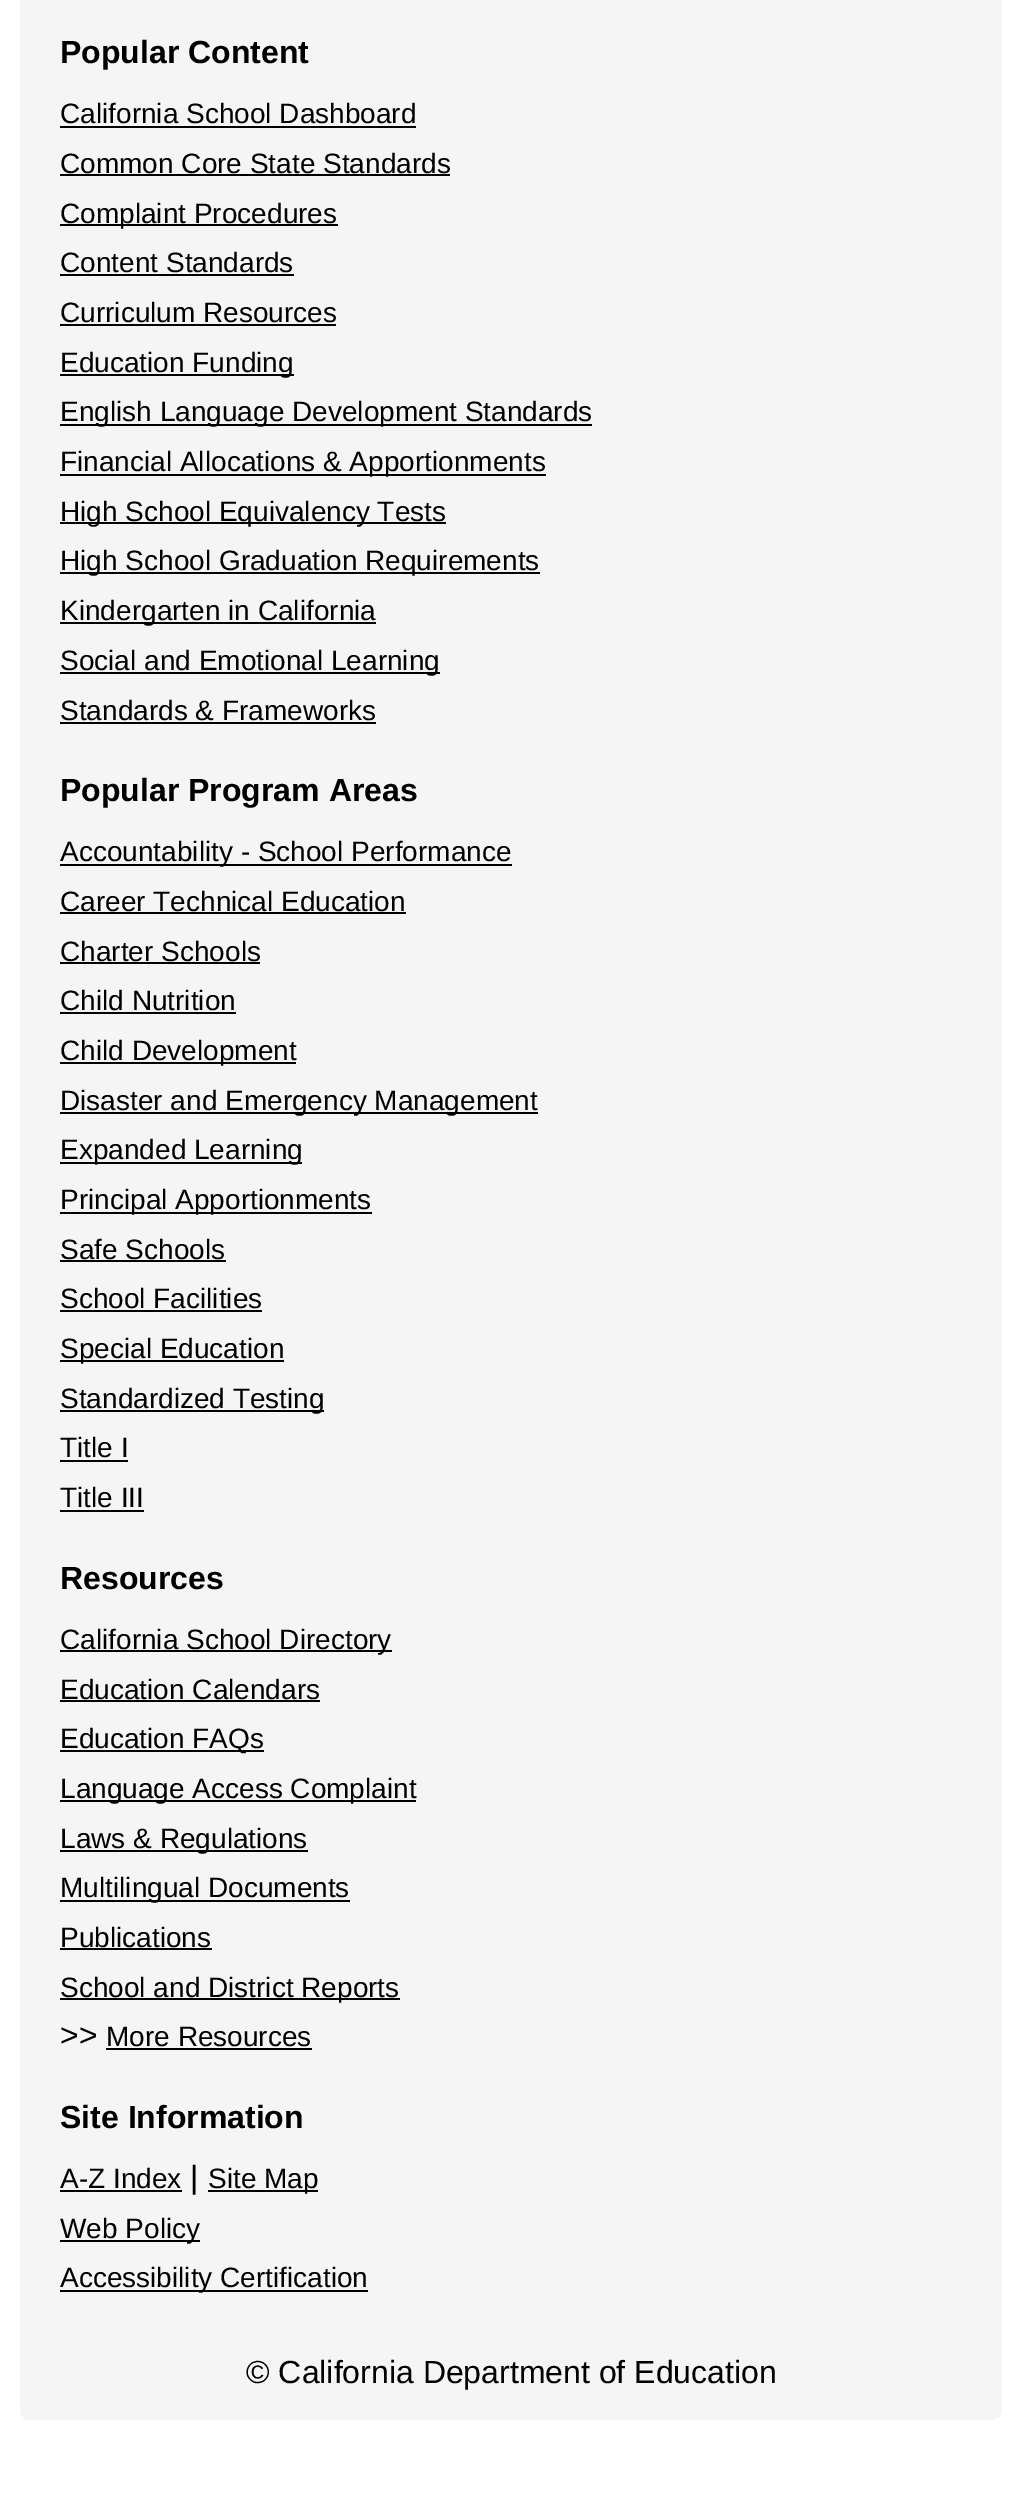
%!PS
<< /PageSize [1022 2500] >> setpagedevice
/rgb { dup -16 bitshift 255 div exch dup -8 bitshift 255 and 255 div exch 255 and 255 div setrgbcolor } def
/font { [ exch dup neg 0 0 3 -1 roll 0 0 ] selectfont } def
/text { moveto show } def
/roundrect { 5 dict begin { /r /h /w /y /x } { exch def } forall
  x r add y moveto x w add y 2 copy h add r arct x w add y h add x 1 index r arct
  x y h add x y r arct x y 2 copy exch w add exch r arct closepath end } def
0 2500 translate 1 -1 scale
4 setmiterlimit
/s1 { /LiberationSans-Bold 32 font 16#000000 rgb } def
/s2 { /LiberationSans-Regular 28 font 16#000000 rgb } def
/s3 { /LiberationSans-Regular 32 font 16#000000 rgb } def
16#FFFFFF rgb
0 0 1022 2500 rectfill
16#F5F5F5 rgb
20 -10 982 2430 10 roundrect fill
s1
(Popular Content) 60 63 text
s2
(California School Dashboard) 60 123 text
60 126 356 2 rectfill
(Common Core State Standards) 60 173 text
60 174 390 2 rectfill
60 224 278 2 rectfill
(Complaint Procedures) 60 223 text
(Content Standards) 60 272 text
60 274 234 2 rectfill
(Curriculum Resources) 60 322 text
60 324 276 2 rectfill
60 374 234 2 rectfill
(Education Funding) 60 372 text
60 424 532 2 rectfill
(English Language Development Standards) 60 421 text
60 474 486 2 rectfill
(Financial Allocations & Apportionments) 60 471 text
60 522 386 2 rectfill
(High School Equivalency Tests) 60 521 text
60 572 480 2 rectfill
(High School Graduation Requirements) 60 570 text
60 622 316 2 rectfill
(Kindergarten in California) 60 620 text
60 672 380 2 rectfill
(Social and Emotional Learning) 60 670 text
(Standards & Frameworks) 60 720 text
60 722 316 2 rectfill
s1
(Popular Program Areas) 60 801 text
60 864 452 2 rectfill
s2
(Accountability - School Performance) 60 861 text
(Career Technical Education) 60 911 text
60 912 346 2 rectfill
(Charter Schools) 60 961 text
60 962 200 2 rectfill
(Child Nutrition) 60 1010 text
60 1012 176 2 rectfill
60 1062 236 2 rectfill
(Child Development) 60 1060 text
60 1112 478 2 rectfill
(Disaster and Emergency Management) 60 1110 text
60 1162 242 2 rectfill
(Expanded Learning) 60 1159 text
60 1212 312 2 rectfill
(Principal Apportionments) 60 1209 text
(Safe Schools) 60 1259 text
60 1260 166 2 rectfill
(School Facilities) 60 1308 text
60 1310 202 2 rectfill
60 1360 224 2 rectfill
(Special Education) 60 1358 text
60 1410 264 2 rectfill
(Standardized Testing) 60 1408 text
(Title I) 60 1457 text
60 1460 68 2 rectfill
(Title III) 60 1507 text
60 1510 84 2 rectfill
s1
(Resources) 60 1589 text
60 1650 332 2 rectfill
s2
(California School Directory) 60 1649 text
(Education Calendars) 60 1699 text
60 1700 260 2 rectfill
60 1750 204 2 rectfill
(Education FAQs) 60 1748 text
60 1800 356 2 rectfill
(Language Access Complaint) 60 1798 text
60 1850 248 2 rectfill
(Laws & Regulations) 60 1848 text
60 1900 290 2 rectfill
(Multilingual Documents) 60 1897 text
(Publications) 60 1947 text
60 1948 152 2 rectfill
60 1998 340 2 rectfill
(School and District Reports) 60 1997 text
s3
(>>) 60 2046 text
s2
(More Resources) 106 2046 text
106 2048 206 2 rectfill
s1
(Site Information) 60 2128 text
s2
(A-Z Index) 60 2188 text
60 2190 122 2 rectfill
s3
(|) 190 2188 text
208 2190 110 2 rectfill
s2
(Site Map) 208 2188 text
60 2240 140 2 rectfill
(Web Policy) 60 2238 text
60 2290 308 2 rectfill
(Accessibility Certification) 60 2287 text
s3
(© California Department of Education) 246 2383 text
showpage
